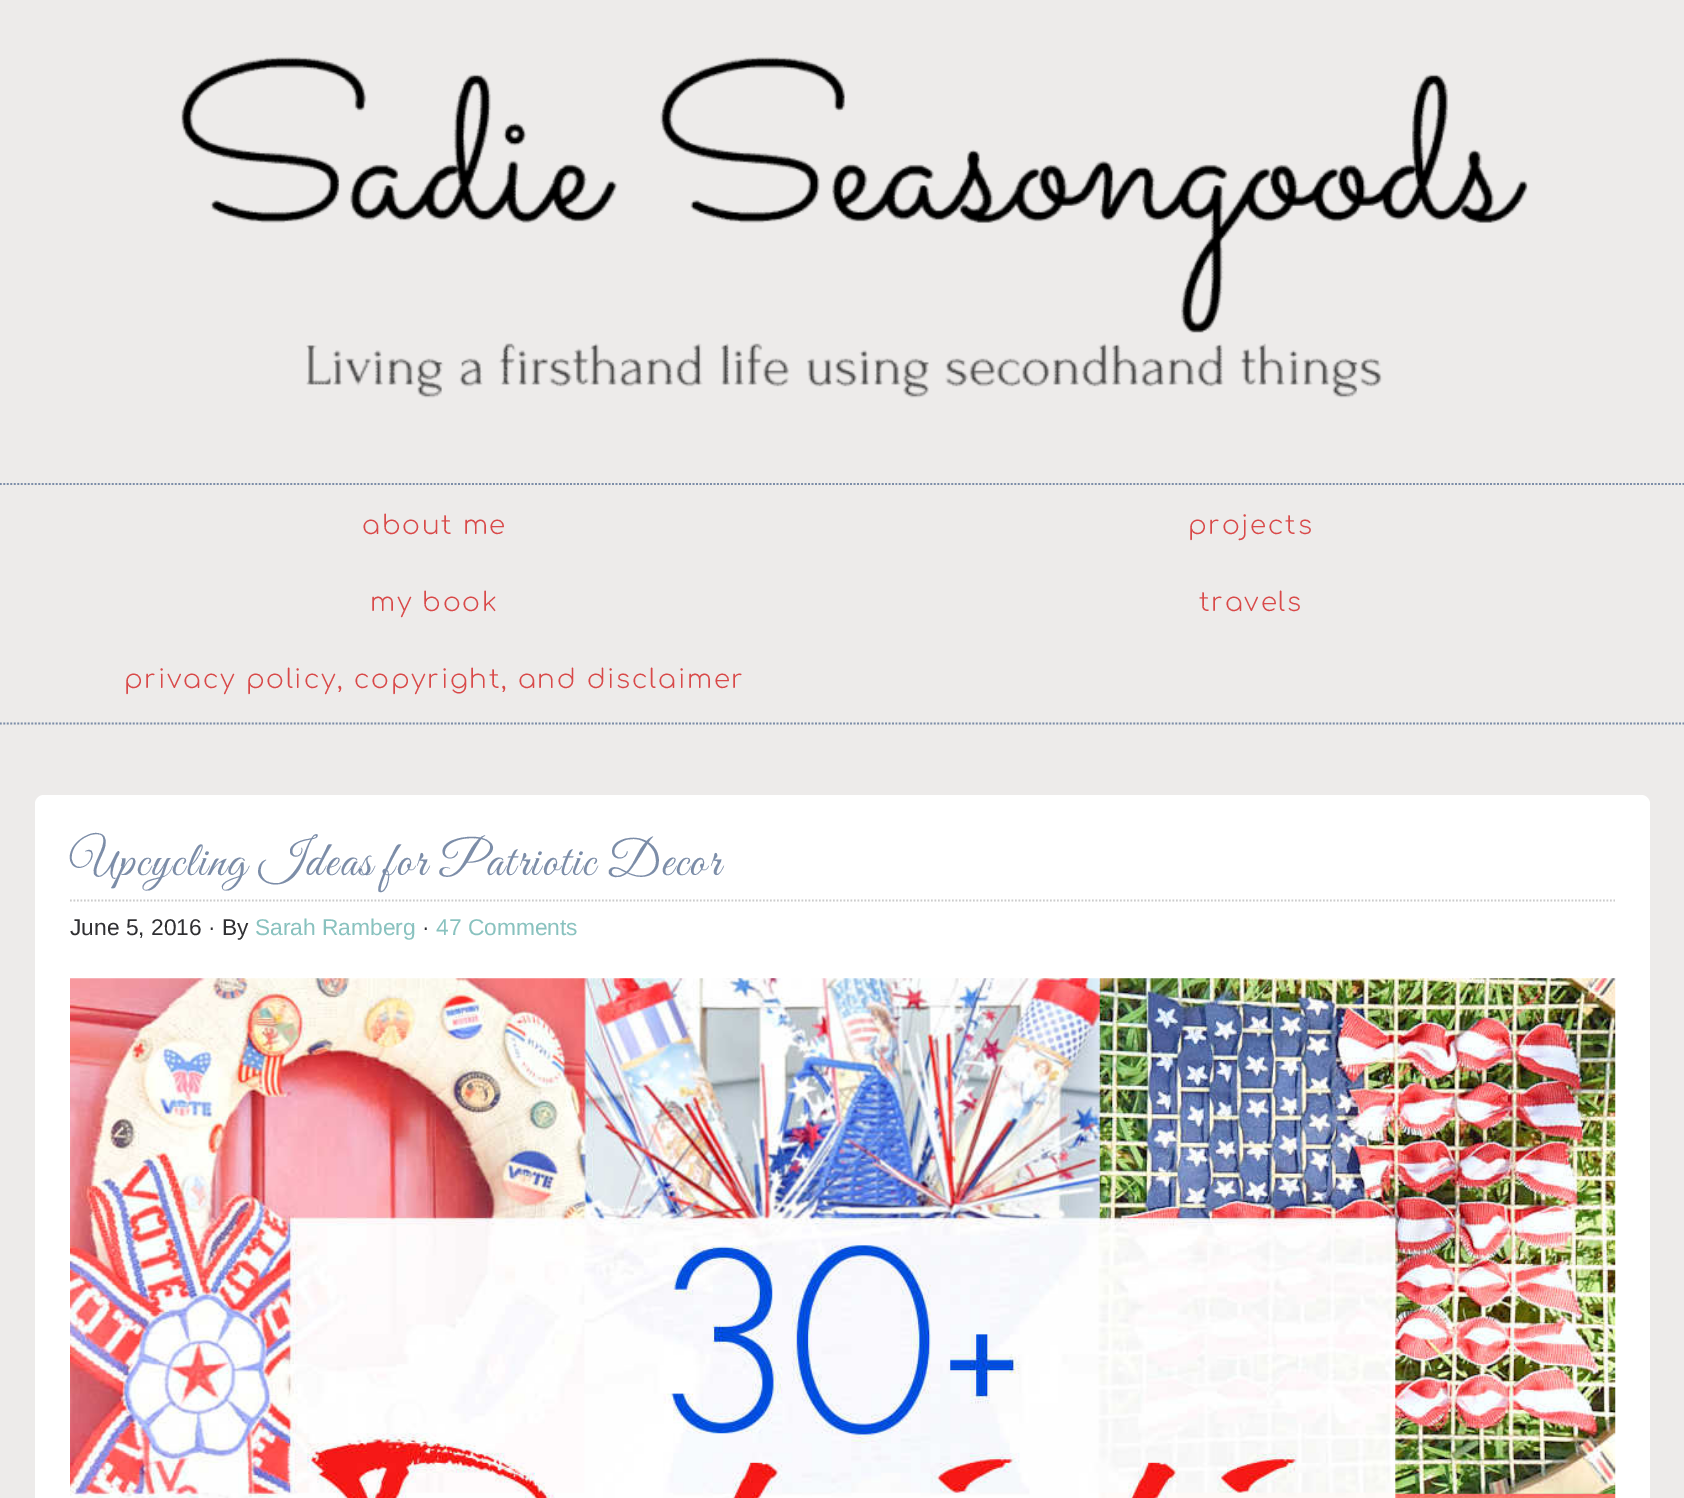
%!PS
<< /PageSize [1684 1498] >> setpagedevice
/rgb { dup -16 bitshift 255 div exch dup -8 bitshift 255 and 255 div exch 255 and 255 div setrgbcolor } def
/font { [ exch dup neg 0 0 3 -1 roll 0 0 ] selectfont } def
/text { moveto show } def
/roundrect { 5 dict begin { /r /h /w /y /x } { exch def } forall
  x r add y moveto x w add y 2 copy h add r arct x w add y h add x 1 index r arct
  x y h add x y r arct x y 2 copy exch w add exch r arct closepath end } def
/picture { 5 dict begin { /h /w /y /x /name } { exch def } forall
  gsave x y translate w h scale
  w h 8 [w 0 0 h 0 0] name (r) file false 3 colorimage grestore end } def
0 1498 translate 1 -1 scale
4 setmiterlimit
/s1 { /LiberationSans-Regular 22.75 font 16#2F2F32 rgb } def
/s2 { /LiberationSans-Regular 22.75 font 16#89C2BF rgb } def
16#EDEBEA rgb
0 0 1684 1498 rectfill
(pic1.raw) 181 57 1347 341 picture
16#7C8DA8 rgb
1.8 setlinewidth
[1.75 1.75] 0 setdash
0 484 moveto 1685 484 lineto stroke
0 723.5 moveto 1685 723.5 lineto stroke
/Comfortaa-Light 26.25 font
16#D94949 rgb
362 534 moveto 1.75 0 (about me) ashow
1188 534 moveto 1.75 0 (projects) ashow
370 611 moveto 1.75 0 (my book) ashow
1199 611 moveto 1.75 0 (travels) ashow
124 688 moveto 1.75 0 (privacy policy, copyright, and disclaimer) ashow
16#FFFFFF rgb
35 795 1615 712 9 roundrect fill
16#CCCCCC rgb
70 900.5 moveto 1615 900.5 lineto stroke
/GreatVibes-Regular 49 font
16#7C8DA8 rgb
70 875 moveto 0.5 0 32 1.75 0 (Upcycling Ideas for Patriotic Decor) awidthshow
s1
(June 5, 2016 · By) 70 935 text
s2
(Sarah Ramberg) 255 935 text
s1
(·) 422 935 text
s2
(47 Comments) 436 935 text
(pic2.raw) 70 978 1546 520 picture
showpage
